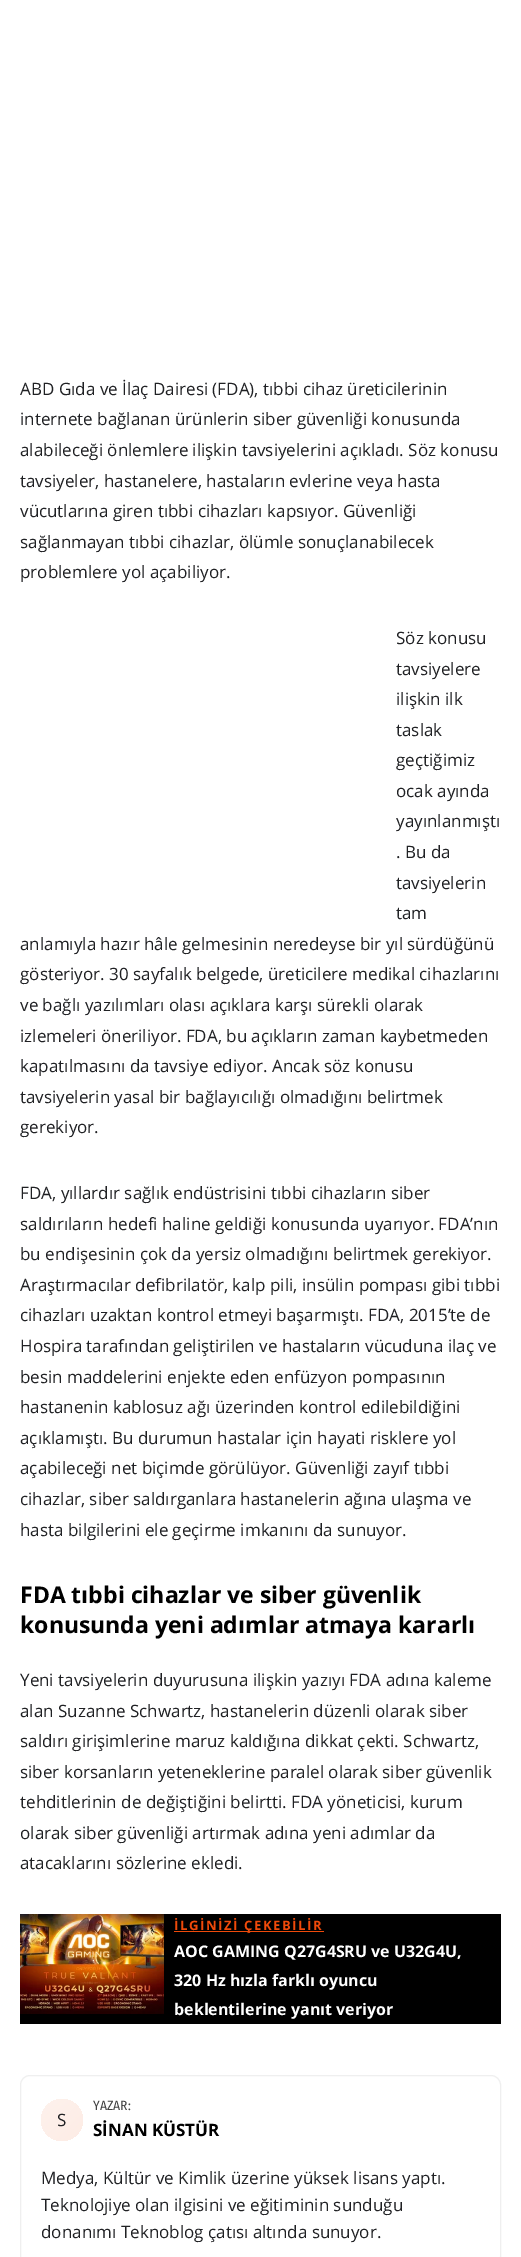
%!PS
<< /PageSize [521 2257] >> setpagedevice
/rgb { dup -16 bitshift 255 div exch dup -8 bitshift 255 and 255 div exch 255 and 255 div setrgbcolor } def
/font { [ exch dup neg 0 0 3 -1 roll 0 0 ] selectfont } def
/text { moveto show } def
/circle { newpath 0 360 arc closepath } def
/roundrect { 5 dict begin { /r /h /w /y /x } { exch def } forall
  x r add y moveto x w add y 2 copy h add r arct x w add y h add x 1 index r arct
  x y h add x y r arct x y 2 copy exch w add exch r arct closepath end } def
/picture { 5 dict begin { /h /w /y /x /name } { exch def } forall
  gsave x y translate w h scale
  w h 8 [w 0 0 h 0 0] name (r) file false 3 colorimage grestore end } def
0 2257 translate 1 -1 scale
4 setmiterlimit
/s1 { /OpenSans-Regular 17 font 16#202124 rgb } def
/s2 { /OpenSans-Bold 23 font 16#000000 rgb } def
/s3 { /OpenSans-Bold 16 font 16#FFFFFF rgb } def
/s4 { /FiraSansCondensed-Regular 13.5 font 16#424242 rgb } def
/s5 { /OpenSans-Bold 17 font 16#000000 rgb } def
16#FFFFFF rgb
0 0 521 2257 rectfill
s1
(ABD Gıda ve İlaç Dairesi \(FDA\), tıbbi cihaz üreticilerinin) 20 395 text
(internete bağlanan ürünlerin siber güvenliği konusunda) 20 425 text
(alabileceği önlemlere ilişkin tavsiyelerini açıkladı. Söz konusu) 20 456 text
(tavsiyeler, hastanelere, hastaların evlerine veya hasta) 20 487 text
(vücutlarına giren tıbbi cihazları kapsıyor. Güvenliği) 20 517 text
(sağlanmayan tıbbi cihazlar, ölümle sonuçlanabilecek) 20 548 text
(problemlere yol açabiliyor.) 20 578 text
(Söz konusu) 396 644 text
(tavsiyelere) 396 675 text
(ilişkin ilk) 396 705 text
(taslak) 396 736 text
(geçtiğimiz) 396 766 text
(ocak ayında) 396 797 text
(yayınlanmıştı) 396 827 text
(. Bu da) 396 858 text
(tavsiyelerin) 396 889 text
(tam) 396 919 text
(anlamıyla hazır hâle gelmesinin neredeyse bir yıl sürdüğünü) 20 950 text
(gösteriyor. 30 sayfalık belgede, üreticilere medikal cihazlarını) 20 980 text
(ve bağlı yazılımları olası açıklara karşı sürekli olarak) 20 1011 text
(izlemeleri öneriliyor. FDA, bu açıkların zaman kaybetmeden) 20 1042 text
(kapatılmasını da tavsiye ediyor. Ancak söz konusu) 20 1072 text
(tavsiyelerin yasal bir bağlayıcılığı olmadığını belirtmek) 20 1103 text
(gerekiyor.) 20 1133 text
(FDA, yıllardır sağlık endüstrisini tıbbi cihazların siber) 20 1199 text
(saldırıların hedefi haline geldiği konusunda uyarıyor. FDA’nın) 20 1230 text
(bu endişesinin çok da yersiz olmadığını belirtmek gerekiyor.) 20 1260 text
(Araştırmacılar defibrilatör, kalp pili, insülin pompası gibi tıbbi) 20 1291 text
(cihazları uzaktan kontrol etmeyi başarmıştı. FDA, 2015’te de) 20 1321 text
(Hospira tarafından geliştirilen ve hastaların vücuduna ilaç ve) 20 1352 text
(besin maddelerini enjekte eden enfüzyon pompasının) 20 1383 text
(hastanenin kablosuz ağı üzerinden kontrol edilebildiğini) 20 1413 text
(açıklamıştı. Bu durumun hastalar için hayati risklere yol) 20 1444 text
(açabileceği net biçimde görülüyor. Güvenliği zayıf tıbbi) 20 1474 text
(cihazlar, siber saldırganlara hastanelerin ağına ulaşma ve) 20 1505 text
(hasta bilgilerini ele geçirme imkanını da sunuyor.) 20 1536 text
s2
(FDA tıbbi cihazlar ve siber güvenlik) 20 1603 text
(konusunda yeni adımlar atmaya kararlı) 20 1633 text
s1
(Yeni tavsiyelerin duyurusuna ilişkin yazıyı FDA adına kaleme) 20 1686 text
(alan Suzanne Schwartz, hastanelerin düzenli olarak siber) 20 1717 text
(saldırı girişimlerine maruz kaldığına dikkat çekti. Schwartz,) 20 1747 text
(siber korsanların yeteneklerine paralel olarak siber güvenlik) 20 1778 text
(tehditlerinin de değiştiğini belirtti. FDA yöneticisi, kurum) 20 1808 text
(olarak siber güvenliği artırmak adına yeni adımlar da) 20 1839 text
(atacaklarını sözlerine ekledi.) 20 1869 text
16#000000 rgb
20 1914 481 110 rectfill
(pic1.raw) 20 1914 144 100 picture
16#F04A0A rgb
174 1931 150 1 rectfill
/OpenSans-Bold 13 font
174 1930 moveto 1.6 0 (İLGİNİZİ ÇEKEBİLİR) ashow
s3
(AOC GAMING Q27G4SRU ve U32G4U,) 174 1957 text
(320 Hz hızla farklı oyuncu) 174 1986 text
(beklentilerine yanıt veriyor) 174 2015 text
16#EFEFEF rgb
20.5 2075.5 480 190 9.5 roundrect stroke
gsave 62 2120 21 circle clip newpath
<< /ShadingType 2 /ColorSpace /DeviceRGB /Coords [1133 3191 -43 2015] /Extend [true true] /Function << /FunctionType 2 /Domain [0 1] /C0 [0.941 0.29 0.039] /C1 [1 1 1] /N 1 >> >> shfill grestore
s1
(S) 57 2126 text
s4
(YAZAR:) 93 2110 text
s5
(SİNAN KÜSTÜR) 93 2136 text
s1
(Medya, Kültür ve Kimlik üzerine yüksek lisans yaptı.) 41 2184 text
(Teknolojiye olan ilgisini ve eğitiminin sunduğu) 41 2211 text
(donanımı Teknoblog çatısı altında sunuyor.) 41 2238 text
showpage
